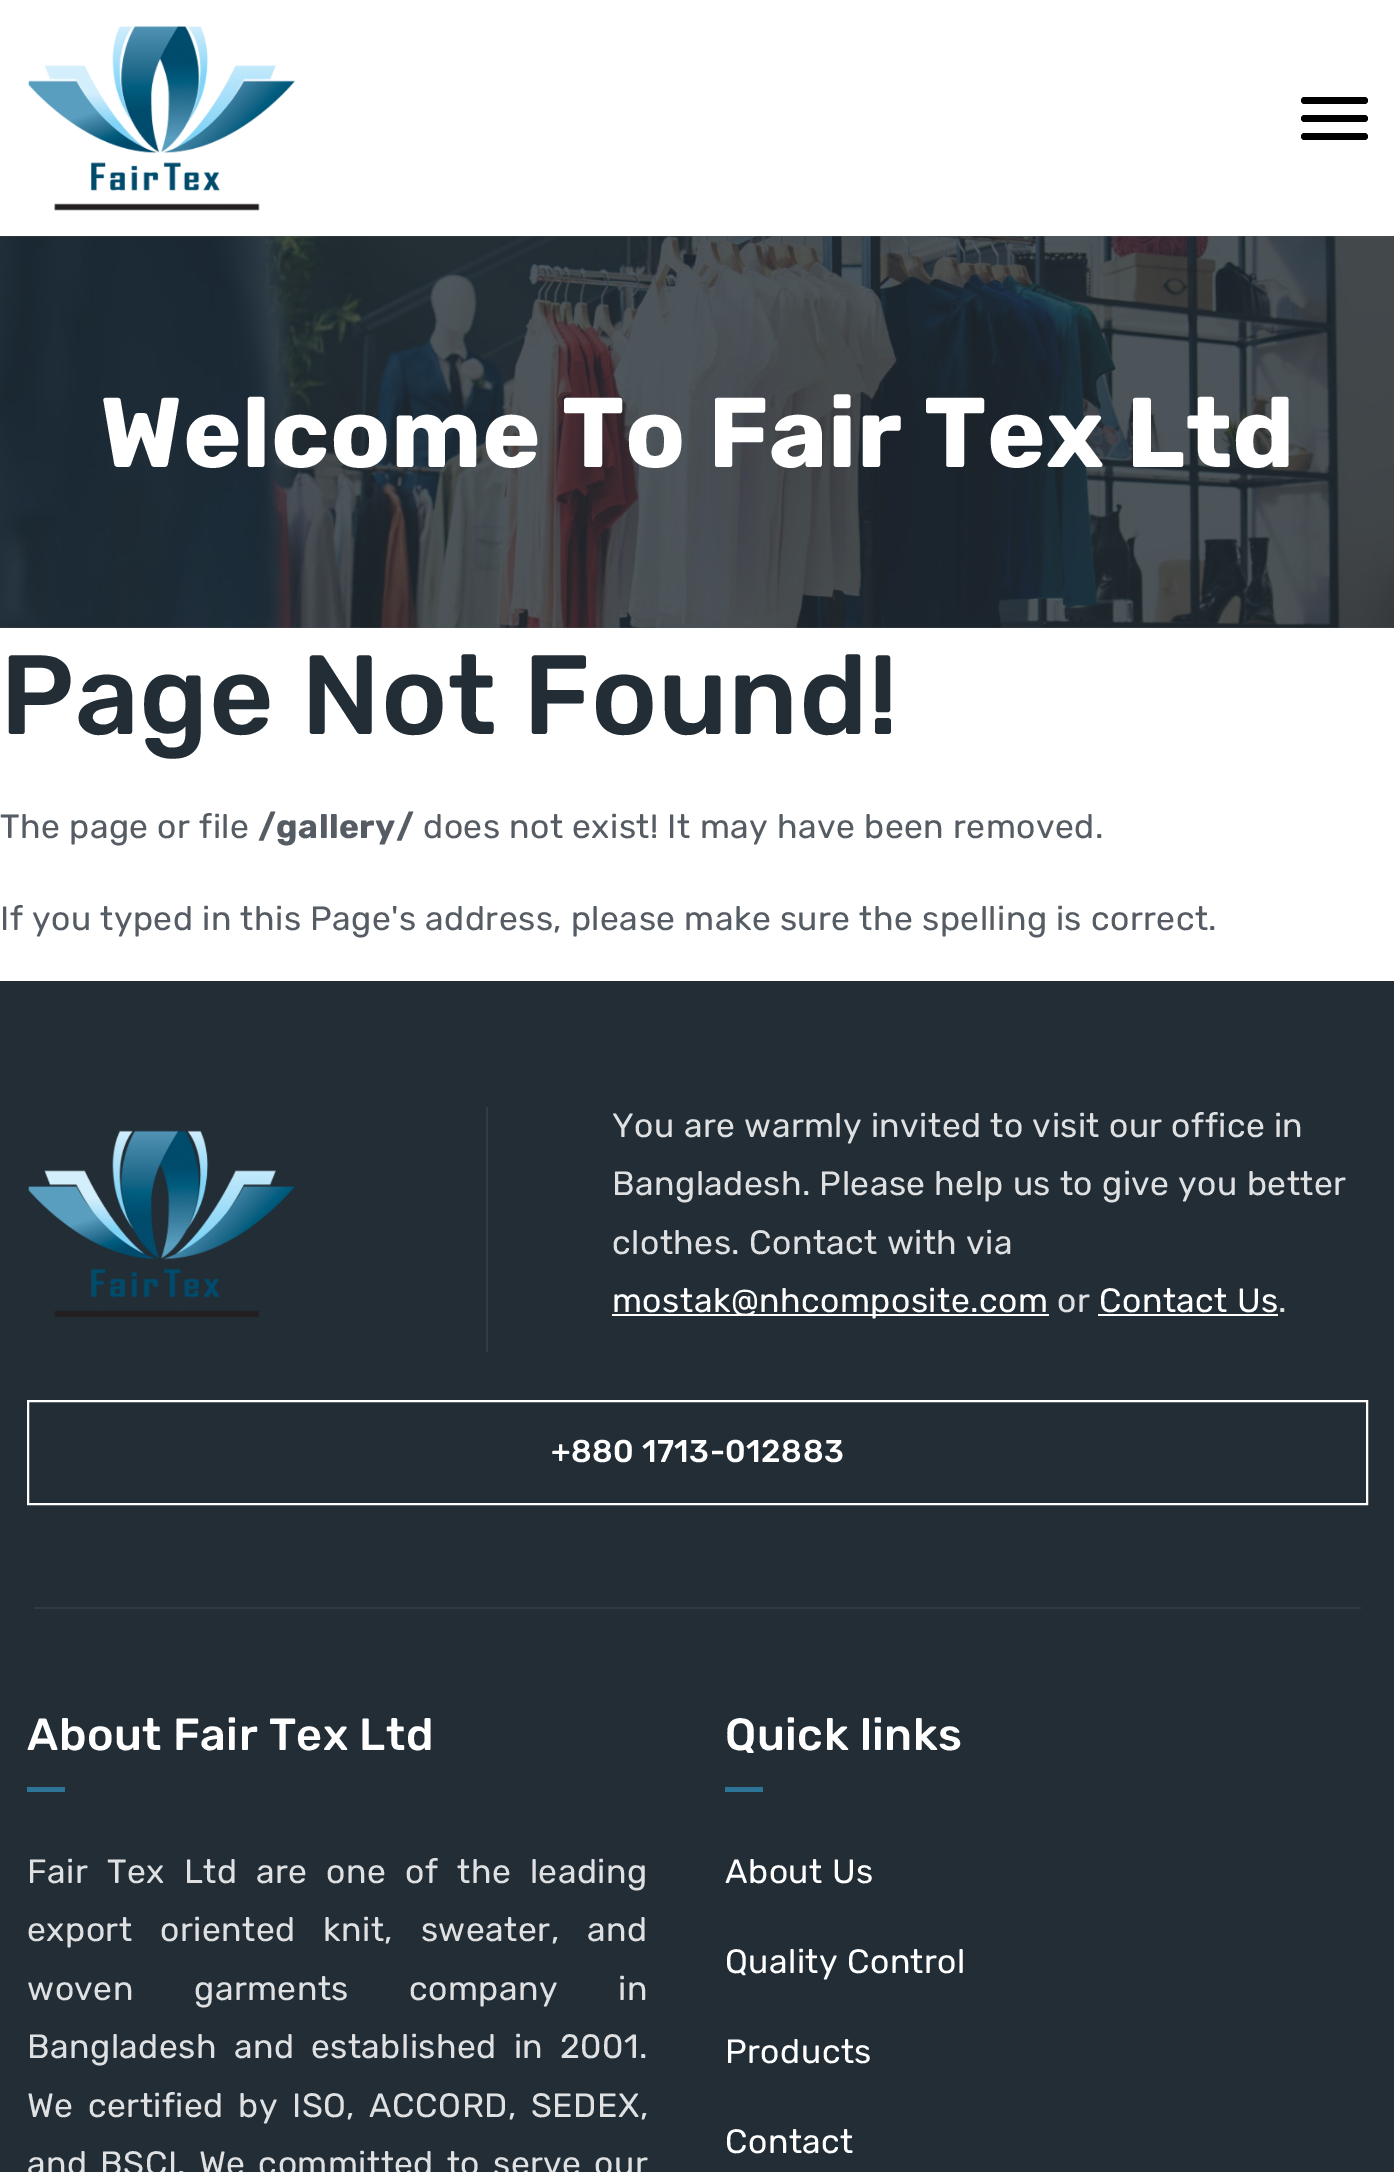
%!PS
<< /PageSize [1394 2172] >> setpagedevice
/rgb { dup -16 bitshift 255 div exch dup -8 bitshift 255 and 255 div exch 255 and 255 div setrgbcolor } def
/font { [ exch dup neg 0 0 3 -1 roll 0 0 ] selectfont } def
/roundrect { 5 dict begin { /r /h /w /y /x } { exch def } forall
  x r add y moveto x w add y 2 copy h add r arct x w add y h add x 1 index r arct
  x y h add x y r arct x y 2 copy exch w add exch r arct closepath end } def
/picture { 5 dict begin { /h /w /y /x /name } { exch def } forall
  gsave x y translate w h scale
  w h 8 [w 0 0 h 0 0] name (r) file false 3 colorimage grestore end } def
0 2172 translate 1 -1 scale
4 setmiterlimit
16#FFFFFF rgb
0 0 1394 2172 rectfill
(pic1.raw) 28 26 267 185 picture
16#000000 rgb
1301 115 67 7 3.5 roundrect fill
1301 97 67 7 3.5 roundrect fill
1301 133 67 7 3.5 roundrect fill
(pic2.raw) 0 236 1394 392 picture
/Rubik-Bold 99 font
16#FFFFFF rgb
100 467 moveto 0.45 0 (Welcome To Fair Tex Ltd) ashow
/Rubik-Medium 112.5 font
16#222D35 rgb
0 734 moveto 0.45 0 (Page Not Found!) ashow
/Rubik-Regular 33.75 font
16#555C63 rgb
0 838 moveto 0.45 0 (The page or file) ashow
/Rubik-Bold 33.75 font
258 838 moveto 0.45 0 (/gallery/) ashow
/Rubik-Regular 33.75 font
423 838 moveto 0.45 0 (does not exist! It may have been removed.) ashow
0 930 moveto 0.45 0 (If you typed in this Page's address, please make sure the spelling is correct.) ashow
16#222D35 rgb
0 981 1394 1191 rectfill
(pic3.raw) 28 1130 267 187 picture
16#313C43 rgb
486 1107 2 245 rectfill
16#DEE0E1 rgb
612 1137 moveto 0.45 0 (You are warmly invited to visit our office in) ashow
612 1195 moveto 0.45 0 (Bangladesh. Please help us to give you better) ashow
612 1254 moveto 0.45 0 (clothes. Contact with via) ashow
16#FFFFFF rgb
612 1314 437 2 rectfill
612 1312 moveto 0.45 0 (mostak@nhcomposite.com) ashow
16#DEE0E1 rgb
1057 1312 moveto 0.45 0 (or) ashow
16#FFFFFF rgb
1099 1312 moveto 0.45 0 (Contact Us) ashow
1098 1314 180 2 rectfill
16#DEE0E1 rgb
1278 1312 moveto 0.45 0 (.) ashow
16#FFFFFF rgb
2 setlinewidth
28 1401 1339 103 rectstroke
/Rubik-Medium 31.5 font
551 1462 moveto 0.45 0 (+880 1713-012883) ashow
16#2F3A41 rgb
34 1607 1327 2 rectfill
/Rubik-Medium 45 font
16#FFFFFF rgb
27 1750 moveto 0.45 0 (About Fair Tex Ltd) ashow
16#2E7496 rgb
27 1787 38 5 rectfill
/Rubik-Regular 33.75 font
16#DEE0E1 rgb
27 1883 moveto 10 0 32 0.45 0 (Fair Tex Ltd are one of the leading) awidthshow
27 1941 moveto 19 0 32 0.45 0 (export oriented knit, sweater, and) awidthshow
27 2000 moveto 51.5 0 32 0.45 0 (woven garments company in) awidthshow
27 2058 moveto 8 0 32 0.45 0 (Bangladesh and established in 2001.) awidthshow
27 2117 moveto 5.5 0 32 0.45 0 (We certified by ISO, ACCORD, SEDEX,) awidthshow
27 2175 moveto 4 0 32 0.45 0 (and BSCI. We committed to serve our) awidthshow
/Rubik-Medium 45 font
16#FFFFFF rgb
725 1750 moveto 0.45 0 (Quick links) ashow
16#2E7496 rgb
725 1787 38 5 rectfill
/Rubik-Regular 33.75 font
16#FFFFFF rgb
725 1883 moveto 0.45 0 (About Us) ashow
725 1973 moveto 0.45 0 (Quality Control) ashow
725 2063 moveto 0.45 0 (Products) ashow
725 2153 moveto 0.45 0 (Contact) ashow
showpage
